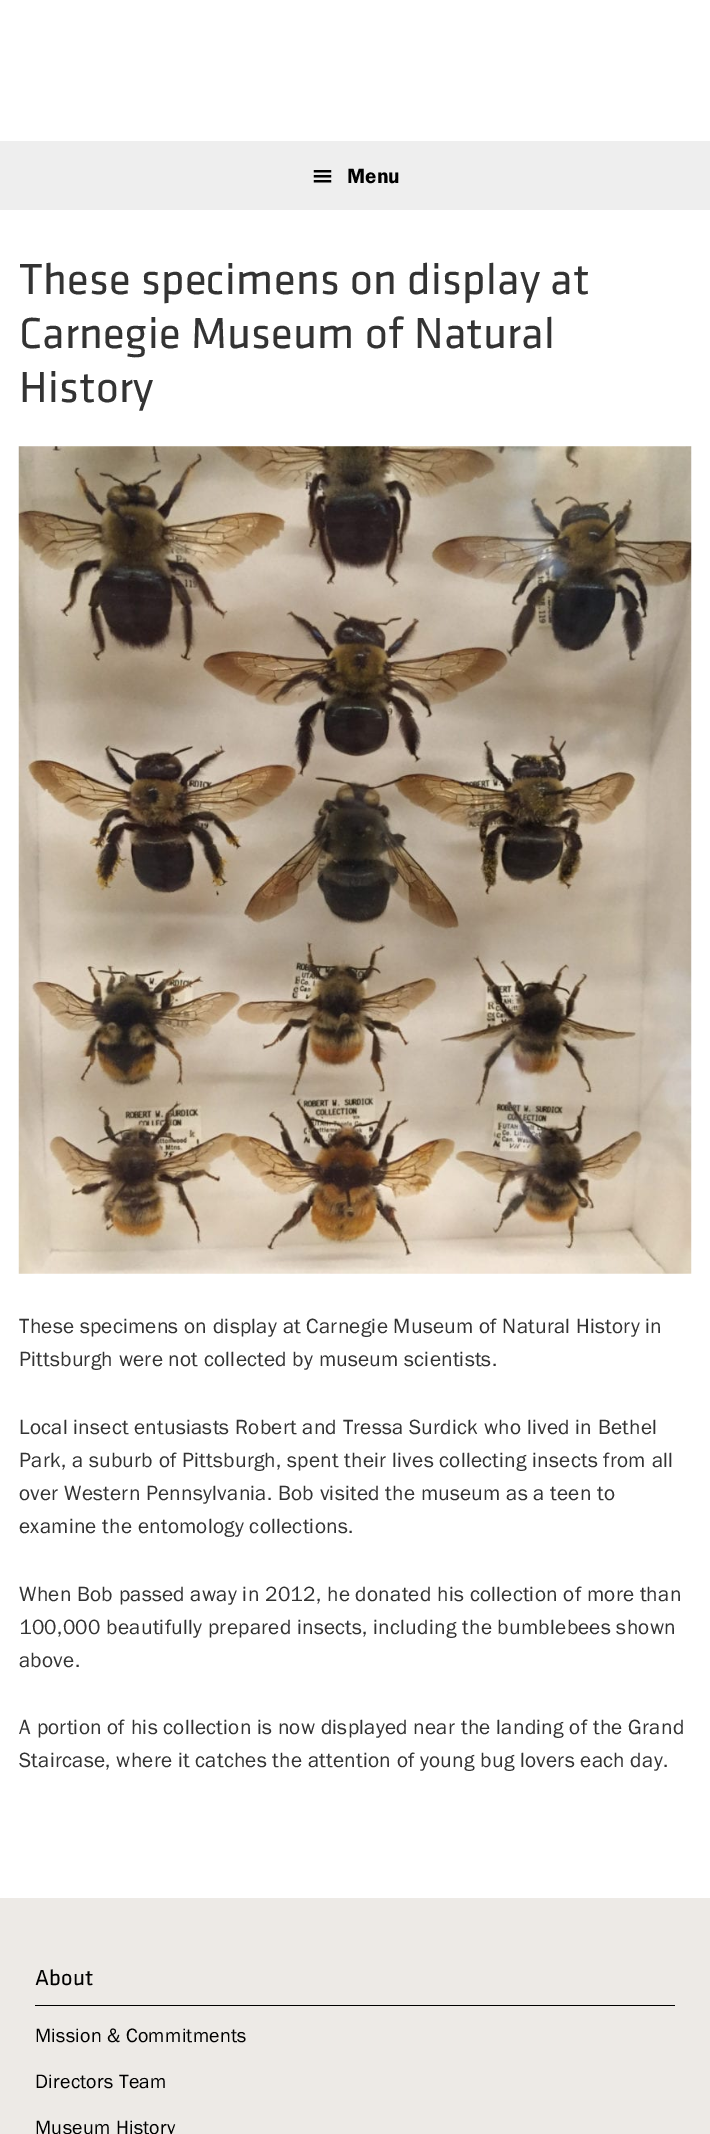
%!PS
<< /PageSize [710 2134] >> setpagedevice
/rgb { dup -16 bitshift 255 div exch dup -8 bitshift 255 and 255 div exch 255 and 255 div setrgbcolor } def
/font { [ exch dup neg 0 0 3 -1 roll 0 0 ] selectfont } def
/text { moveto show } def
/picture { 5 dict begin { /h /w /y /x /name } { exch def } forall
  gsave x y translate w h scale
  w h 8 [w 0 0 h 0 0] name (r) file false 3 colorimage grestore end } def
0 2134 translate 1 -1 scale
4 setmiterlimit
/s1 { /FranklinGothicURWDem-Regular 21.25 font 16#000000 rgb } def
16#FFFFFF rgb
0 0 710 2134 rectfill
16#EEEEEE rgb
0 141 710 69 rectfill
(pic1.raw) 313 170 19 13 picture
s1
(Menu) 347 183 text
/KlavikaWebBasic-Regular 45 font
16#333333 rgb
19 294 moveto 0.25 0 (These specimens on display at) ashow
19 348 moveto 0.25 0 (Carnegie Museum of Natural) ashow
19 402 moveto 0.25 0 (History) ashow
(pic2.raw) 18 446 674 828 picture
/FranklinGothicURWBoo-Regular 21.25 font
19 1333 moveto 0.25 0 (These specimens on display at Carnegie Museum of Natural History in) ashow
19 1366 moveto 0.25 0 (Pittsburgh were not collected by museum scientists.) ashow
19 1434 moveto 0.25 0 (Local insect entusiasts Robert and Tressa Surdick who lived in Bethel) ashow
19 1467 moveto 0.25 0 (Park, a suburb of Pittsburgh, spent their lives collecting insects from all) ashow
19 1500 moveto 0.25 0 (over Western Pennsylvania. Bob visited the museum as a teen to) ashow
19 1533 moveto 0.25 0 (examine the entomology collections.) ashow
19 1601 moveto 0.25 0 (When Bob passed away in 2012, he donated his collection of more than) ashow
19 1634 moveto 0.25 0 (100,000 beautifully prepared insects, including the bumblebees shown) ashow
19 1667 moveto 0.25 0 (above.) ashow
19 1734 moveto 0.25 0 (A portion of his collection is now displayed near the landing of the Grand) ashow
19 1767 moveto 0.25 0 (Staircase, where it catches the attention of young bug lovers each day.) ashow
16#EDEAE6 rgb
0 1898 710 236 rectfill
16#000000 rgb
35 2005 640 1 rectfill
/KlavikaWebBasic-Regular 22.5 font
35 1985 moveto 0.25 0 (About) ashow
/FranklinGothicURWBoo-Regular 20 font
35 2042 moveto 0.25 0 (Mission & Commitments) ashow
35 2088 moveto 0.25 0 (Directors Team) ashow
35 2134 moveto 0.25 0 (Museum History) ashow
showpage
